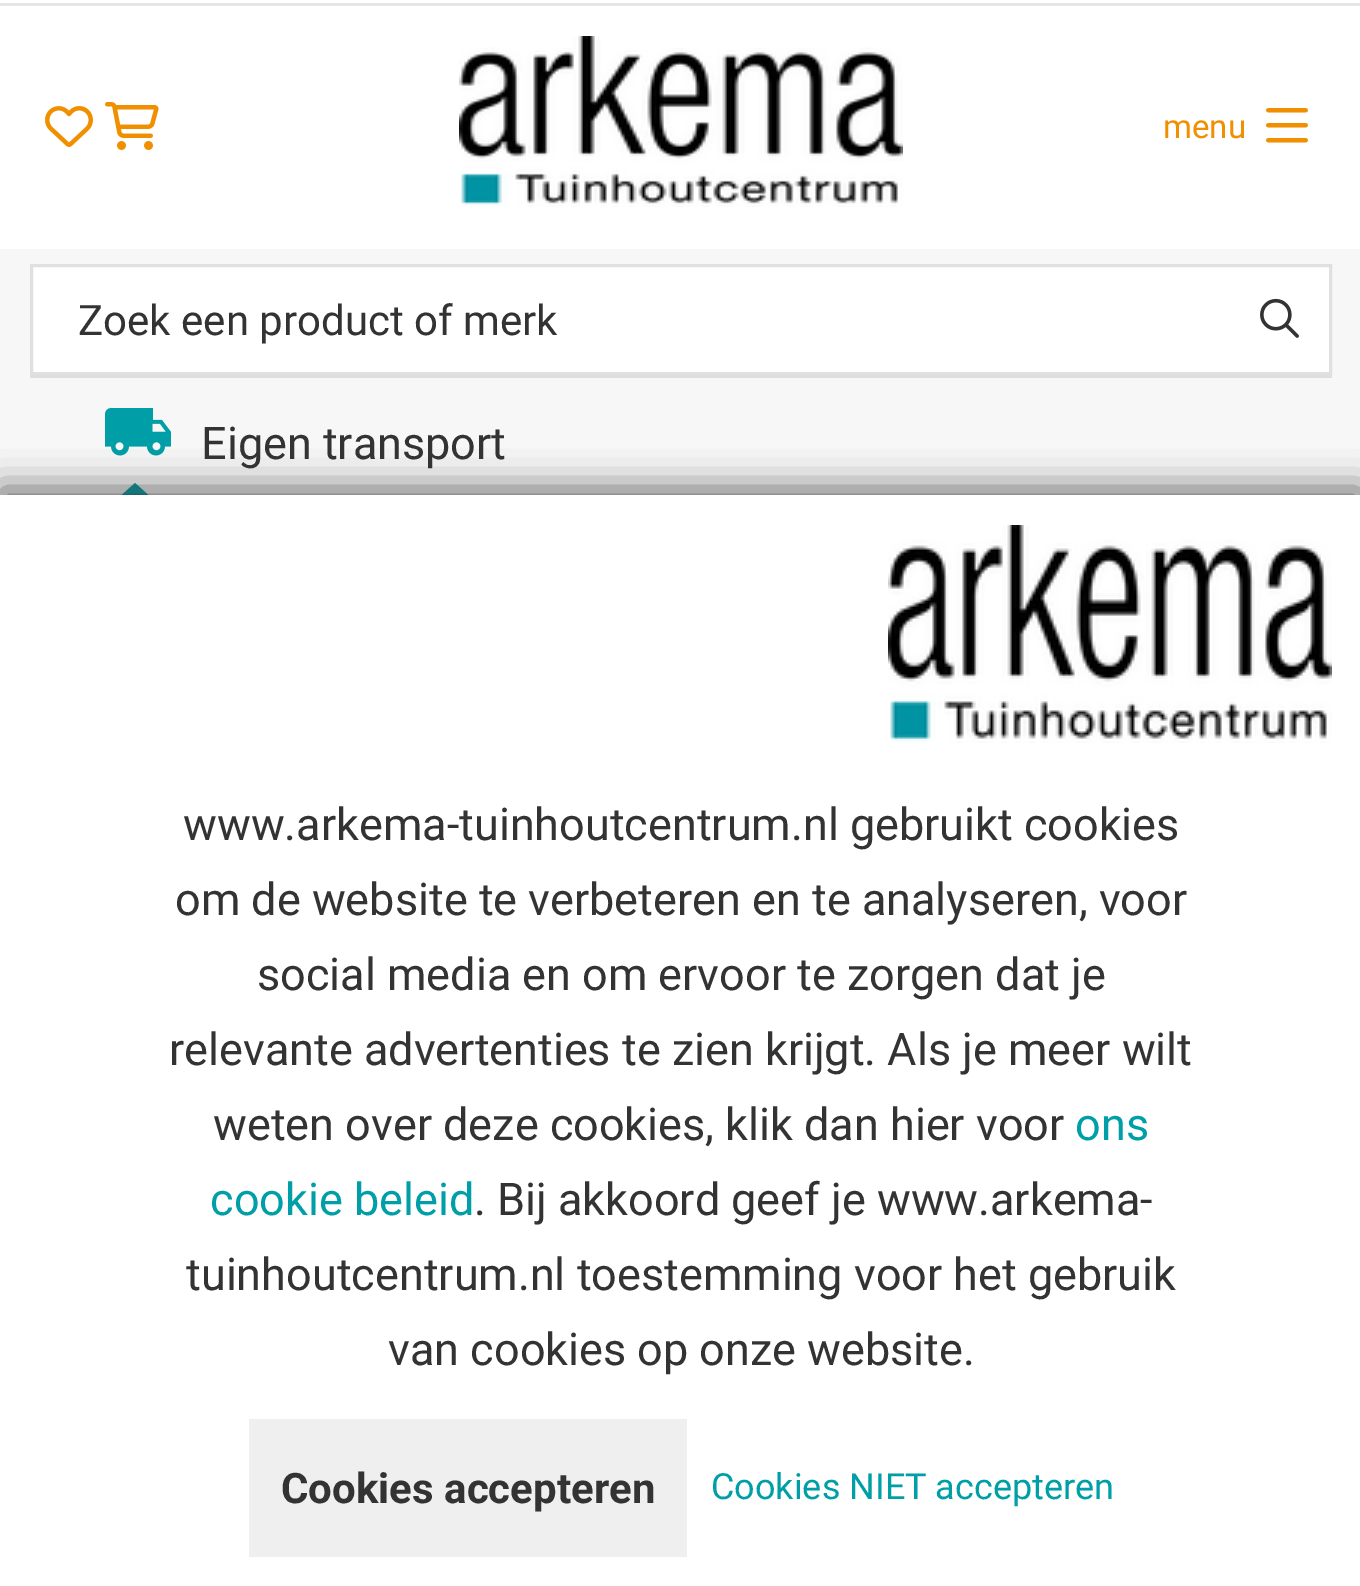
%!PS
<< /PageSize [1360 1586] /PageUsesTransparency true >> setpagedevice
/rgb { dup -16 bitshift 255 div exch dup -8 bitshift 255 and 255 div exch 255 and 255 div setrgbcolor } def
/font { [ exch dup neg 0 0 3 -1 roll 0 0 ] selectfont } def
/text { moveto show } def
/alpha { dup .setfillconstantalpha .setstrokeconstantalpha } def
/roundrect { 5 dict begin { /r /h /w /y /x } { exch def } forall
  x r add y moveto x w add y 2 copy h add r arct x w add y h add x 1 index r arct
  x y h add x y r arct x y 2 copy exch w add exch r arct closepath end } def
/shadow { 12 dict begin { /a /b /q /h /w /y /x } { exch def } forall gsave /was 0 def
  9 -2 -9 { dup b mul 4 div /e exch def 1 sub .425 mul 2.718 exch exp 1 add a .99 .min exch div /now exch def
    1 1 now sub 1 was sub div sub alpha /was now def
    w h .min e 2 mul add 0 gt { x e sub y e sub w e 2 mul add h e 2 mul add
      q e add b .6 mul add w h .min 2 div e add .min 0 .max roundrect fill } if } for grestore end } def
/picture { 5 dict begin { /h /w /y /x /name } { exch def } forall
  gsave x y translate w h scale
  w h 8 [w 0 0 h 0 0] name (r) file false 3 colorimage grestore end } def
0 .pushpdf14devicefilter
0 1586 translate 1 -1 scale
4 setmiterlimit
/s1 { /Roboto-Regular 33 font 16#F09000 rgb } def
/s2 { /Roboto-Regular 42 font 16#333333 rgb } def
/s3 { /Roboto-Regular 45 font 16#333333 rgb } def
/s4 { /Roboto-Regular 45 font 16#009FA7 rgb } def
/s5 { /Roboto-Bold 42 font 16#333333 rgb } def
/s6 { /Roboto-Regular 36 font 16#009FA7 rgb } def
16#FFFFFF rgb
0 0 1360 1586 rectfill
16#E6E6E6 rgb
0 3 1360 3 rectfill
(pic1.raw) 45 106 48 41 picture
(pic2.raw) 105 102 54 48 picture
(pic3.raw) 459 36 444 171 picture
s1
(menu) 1163 138 text
(pic4.raw) 1266 108 42 35 picture
16#F7F7F7 rgb
0 249 1360 246 rectfill
16#FFFFFF rgb
31.5 265.5 moveto 1330.5 265.5 lineto 1330.5 373.5 lineto 31.5 373.5 lineto closepath gsave fill grestore
16#E0E0E0 rgb
3 setlinewidth
stroke
s2
(Zoek een product of merk) 78 335 text
(pic5.raw) 1260 298 39 40 picture
16#DEDEDE rgb
30 375 1302 3 rectfill
(pic6.raw) 105 408 66 48 picture
s3
(Eigen transport) 201 459 text
16#009FA7 rgb
129 534 moveto 129 516 lineto 141 516 lineto 141 534 lineto 156 534 lineto 156 510 lineto 165 510 lineto 135 483 lineto 105 510 lineto 114 510 lineto 114 534 lineto closepath fill
16#323232 rgb
0 489 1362 1092 0 18 0.75 shadow
16#FFFFFF rgb
0 495 1360 1091 rectfill
(pic7.raw) 888 525 444 218 picture
s3
(www.arkema-tuinhoutcentrum.nl gebruikt cookies) 183 840 text
(om de website te verbeteren en te analyseren, voor) 175 915 text
(social media en om ervoor te zorgen dat je) 257 990 text
(relevante advertenties te zien krijgt. Als je meer wilt) 169 1065 text
(weten over deze cookies, klik dan hier voor) 213 1140 text
s4
(ons) 1075 1140 text
(cookie beleid) 210 1215 text
s3
(. Bij akkoord geef je www.arkema-) 474 1215 text
(tuinhoutcentrum.nl toestemming voor het gebruik) 186 1290 text
(van cookies op onze website.) 388 1365 text
16#EFEFEF rgb
249 1419 438 138 rectfill
s5
(Cookies accepteren) 281 1503 text
s6
(Cookies NIET accepteren) 711 1499 text
.poppdf14devicefilter showpage
